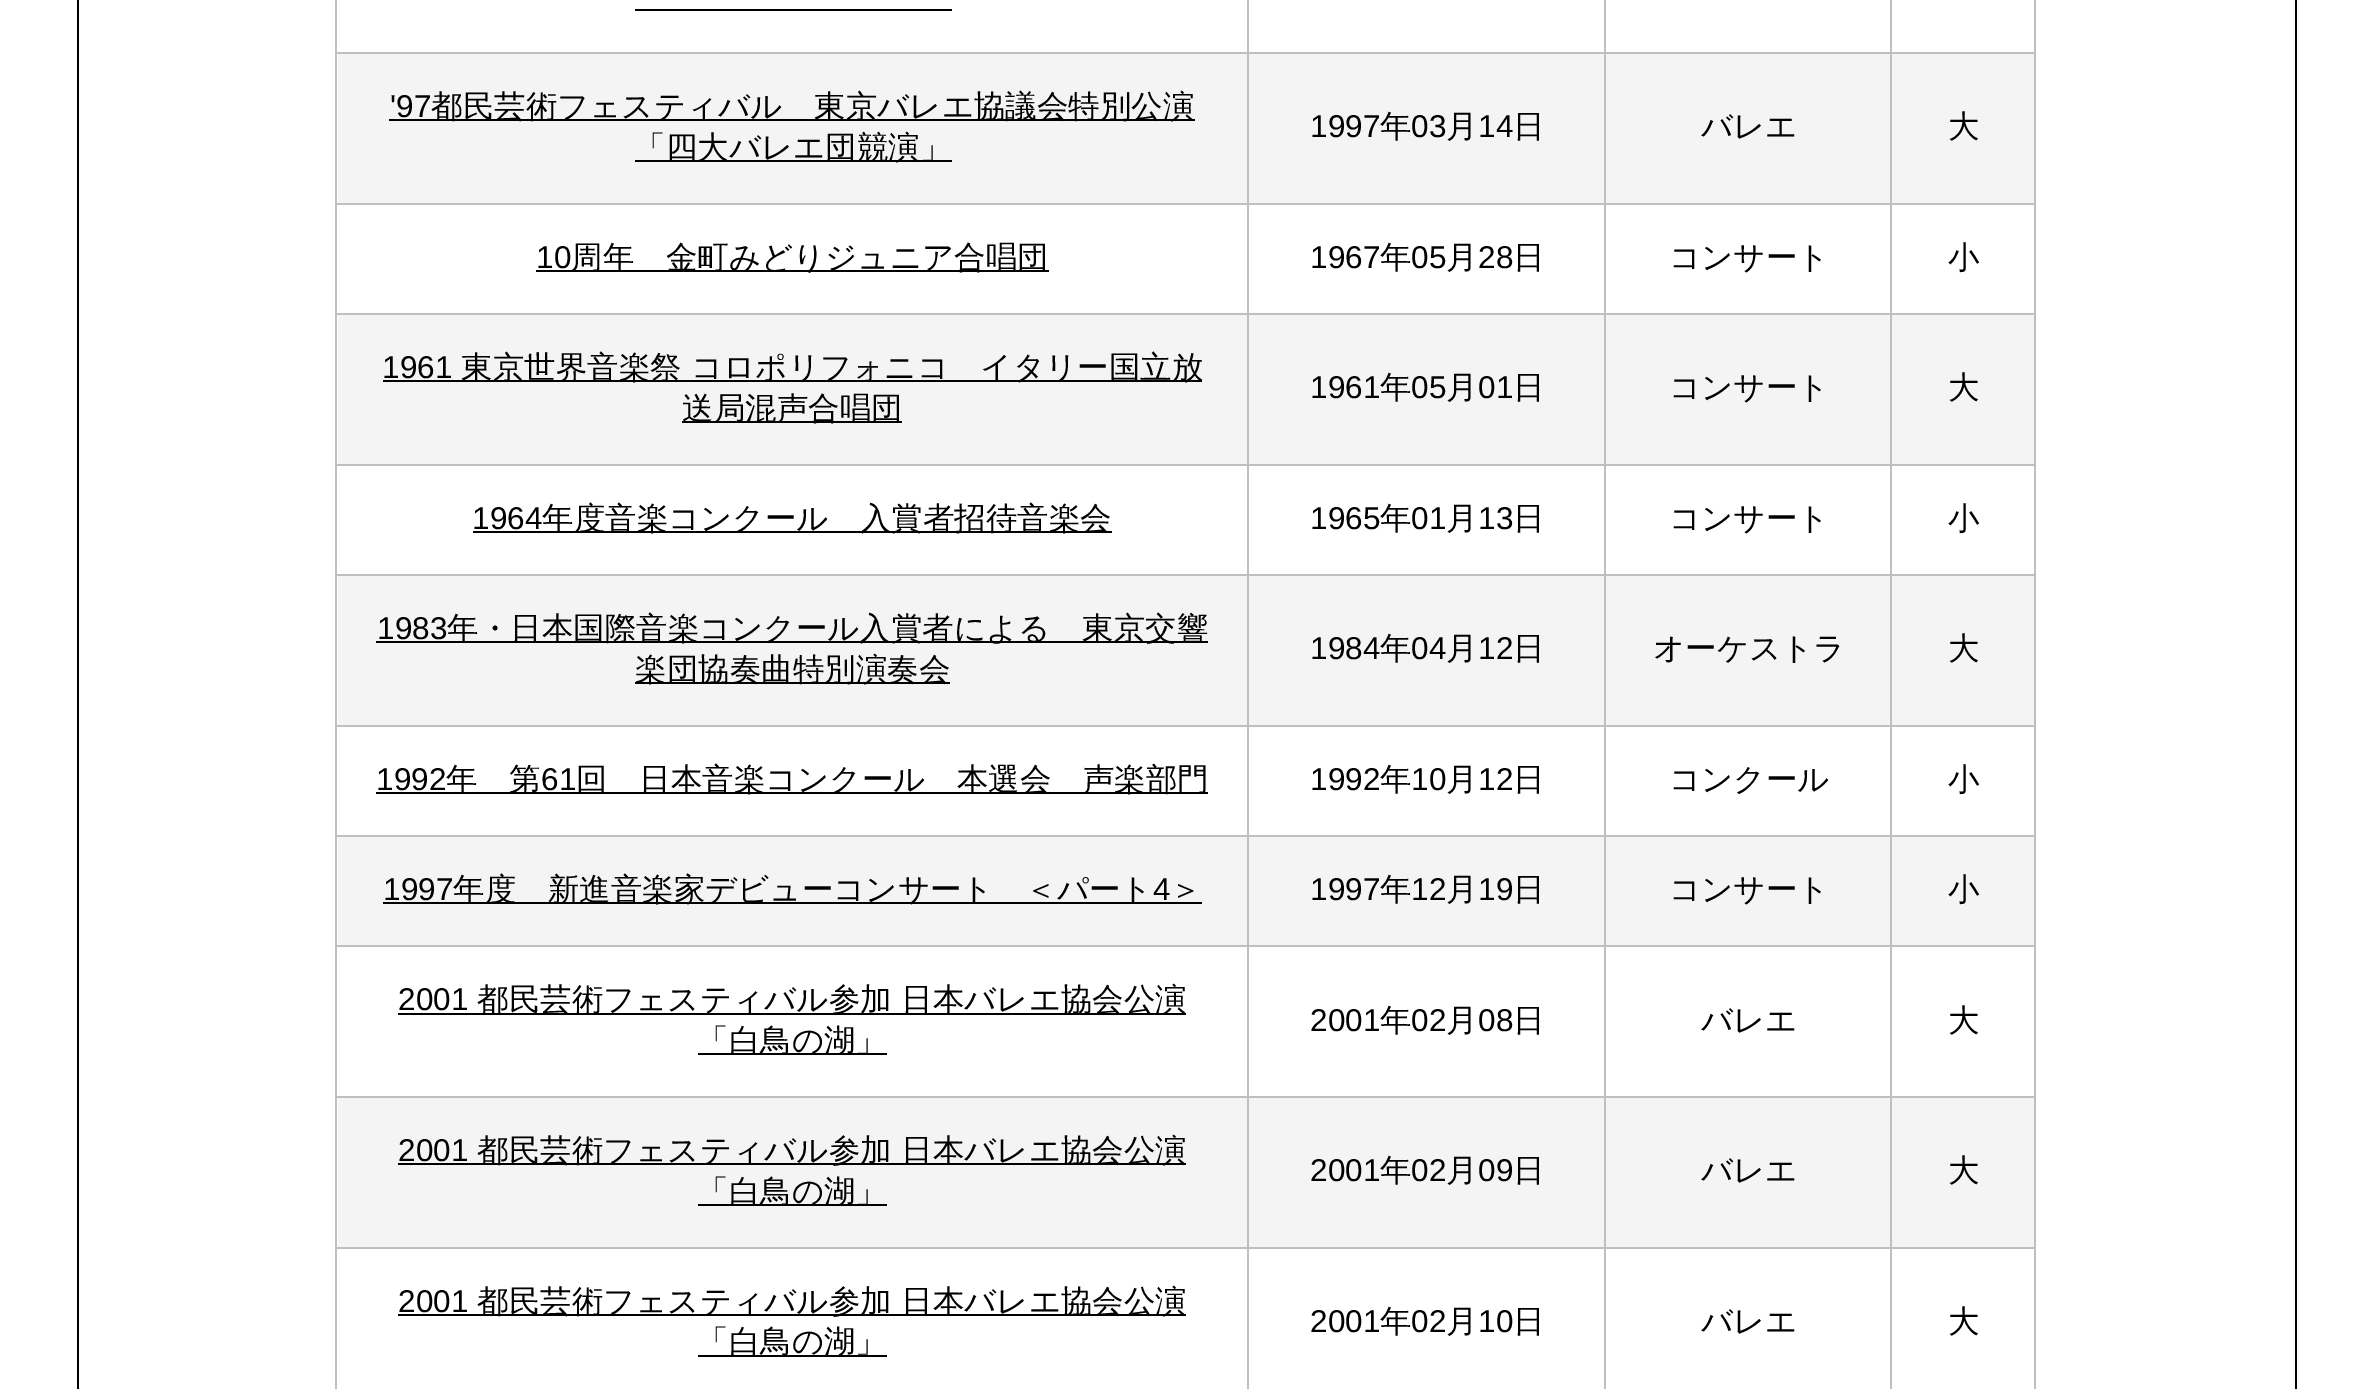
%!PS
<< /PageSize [2371 1389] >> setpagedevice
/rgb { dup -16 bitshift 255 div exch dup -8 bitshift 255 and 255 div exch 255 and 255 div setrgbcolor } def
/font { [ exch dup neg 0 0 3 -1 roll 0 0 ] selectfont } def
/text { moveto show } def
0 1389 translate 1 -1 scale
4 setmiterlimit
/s1 { /LiberationSans-Regular 31.5 font 16#000000 rgb } def
/s2 { /WenQuanYiZenHei-Medium 31.5 font 16#000000 rgb } def
16#FFFFFF rgb
0 0 2371 1389 rectfill
16#000000 rgb
2295 0 2 1389 rectfill
77 0 2 1389 rectfill
635 9 317 2 rectfill
16#BFBFBF rgb
1890 52 146 2 rectfill
16#F4F4F4 rgb
338 54 1696 149 rectfill
16#BFBFBF rgb
1890 203 146 2 rectfill
1890 313 146 2 rectfill
16#F4F4F4 rgb
338 315 1696 149 rectfill
16#BFBFBF rgb
1890 464 146 2 rectfill
1890 574 146 2 rectfill
16#F4F4F4 rgb
338 576 1696 149 rectfill
16#BFBFBF rgb
1890 725 146 2 rectfill
1890 835 146 2 rectfill
16#F4F4F4 rgb
338 837 1696 108 rectfill
16#BFBFBF rgb
1890 945 146 2 rectfill
1890 1096 146 2 rectfill
16#F4F4F4 rgb
338 1098 1696 149 rectfill
16#BFBFBF rgb
1890 1247 146 2 rectfill
1890 1247 2 142 rectfill
1604 1247 288 2 rectfill
1890 1096 2 153 rectfill
1604 1096 288 2 rectfill
1890 945 2 153 rectfill
1604 945 288 2 rectfill
1890 835 2 112 rectfill
1604 835 288 2 rectfill
1890 725 2 112 rectfill
1604 725 288 2 rectfill
1890 574 2 153 rectfill
1604 574 288 2 rectfill
1890 464 2 112 rectfill
1604 464 288 2 rectfill
1890 313 2 153 rectfill
1604 313 288 2 rectfill
1890 203 2 112 rectfill
1604 203 288 2 rectfill
1890 52 2 153 rectfill
1604 52 288 2 rectfill
1604 1247 2 142 rectfill
1247 1247 360 2 rectfill
1604 1096 2 153 rectfill
1247 1096 360 2 rectfill
1604 945 2 153 rectfill
1247 945 360 2 rectfill
1604 835 2 112 rectfill
1247 835 360 2 rectfill
1604 725 2 112 rectfill
1247 725 360 2 rectfill
1604 574 2 153 rectfill
1247 574 360 2 rectfill
1604 464 2 112 rectfill
1247 464 360 2 rectfill
1604 313 2 153 rectfill
1247 313 360 2 rectfill
1604 203 2 112 rectfill
1247 203 360 2 rectfill
1604 52 2 153 rectfill
1247 52 360 2 rectfill
1247 1247 2 142 rectfill
335 1247 914 2 rectfill
1247 1096 2 153 rectfill
335 1096 914 2 rectfill
1247 945 2 153 rectfill
335 945 914 2 rectfill
1247 835 2 112 rectfill
335 835 914 2 rectfill
1247 725 2 112 rectfill
335 725 914 2 rectfill
1247 574 2 153 rectfill
335 574 914 2 rectfill
1247 464 2 112 rectfill
335 464 914 2 rectfill
1247 313 2 153 rectfill
335 313 914 2 rectfill
1247 203 2 112 rectfill
335 203 914 2 rectfill
1247 52 2 153 rectfill
335 52 914 2 rectfill
1247 0 2 54 rectfill
1604 0 2 54 rectfill
1890 0 2 54 rectfill
335 1247 2 142 rectfill
335 1096 2 153 rectfill
335 945 2 153 rectfill
335 835 2 112 rectfill
335 725 2 112 rectfill
335 574 2 153 rectfill
335 464 2 112 rectfill
335 313 2 153 rectfill
335 203 2 112 rectfill
335 0 2 205 rectfill
s1
('97) 390 117 text
389 119 806 2 rectfill
s2
(都民芸術フェスティバル　東京バレエ協議会特別公演) 431 117 text
635 160 317 2 rectfill
(「四大バレエ団競演」) 634 158 text
s1
(1997) 1310 137 text
s2
(年) 1380 137 text
s1
(03) 1411 137 text
s2
(月) 1446 137 text
s1
(14) 1478 137 text
s2
(日) 1513 137 text
(バレエ) 1701 137 text
16#BFBFBF rgb
2034 1247 2 142 rectfill
2034 1096 2 153 rectfill
2034 945 2 153 rectfill
2034 835 2 112 rectfill
2034 725 2 112 rectfill
2034 574 2 153 rectfill
2034 464 2 112 rectfill
2034 313 2 153 rectfill
2034 203 2 112 rectfill
2034 0 2 205 rectfill
s2
(大) 1948 137 text
s1
(10) 536 268 text
536 270 513 2 rectfill
s2
(周年　金町みどりジュニア合唱団) 571 268 text
s1
(1967) 1310 268 text
s2
(年) 1380 268 text
s1
(05) 1411 268 text
s2
(月) 1446 268 text
s1
(28) 1478 268 text
s2
(日) 1513 268 text
(コンサート) 1669 268 text
(小) 1948 268 text
s1
(1961) 382 378 text
383 380 819 2 rectfill
s2
(東京世界音楽祭 コロポリフォニコ　イタリー国立放) 461 378 text
682 421 220 2 rectfill
(送局混声合唱団) 682 419 text
s1
(1961) 1310 398 text
s2
(年) 1380 398 text
s1
(05) 1411 398 text
s2
(月) 1446 398 text
s1
(01) 1478 398 text
s2
(日) 1513 398 text
(コンサート) 1669 398 text
(大) 1948 398 text
s1
(1964) 472 529 text
473 531 639 2 rectfill
s2
(年度音楽コンクール　入賞者招待音楽会) 542 529 text
s1
(1965) 1310 529 text
s2
(年) 1380 529 text
s1
(01) 1411 529 text
s2
(月) 1446 529 text
s1
(13) 1478 529 text
s2
(日) 1513 529 text
(コンサート) 1669 529 text
(小) 1948 529 text
s1
(1983) 377 639 text
376 641 832 2 rectfill
s2
(年・日本国際音楽コンクール入賞者による　東京交響) 447 639 text
635 682 315 2 rectfill
(楽団協奏曲特別演奏会) 635 680 text
s1
(1984) 1310 659 text
s2
(年) 1380 659 text
s1
(04) 1411 659 text
s2
(月) 1446 659 text
s1
(12) 1478 659 text
s2
(日) 1513 659 text
(オーケストラ) 1653 659 text
(大) 1948 659 text
s1
(1992) 376 790 text
376 792 832 2 rectfill
s2
(年　第) 446 790 text
s1
(61) 541 790 text
s2
(回　日本音楽コンクール　本選会　声楽部門) 576 790 text
s1
(1992) 1310 790 text
s2
(年) 1380 790 text
s1
(10) 1411 790 text
s2
(月) 1446 790 text
s1
(12) 1478 790 text
s2
(日) 1513 790 text
(コンクール) 1669 790 text
(小) 1948 790 text
s1
(1997) 383 900 text
383 902 819 2 rectfill
s2
(年度　新進音楽家デビューコンサート　＜パート) 453 900 text
s1
(4) 1153 900 text
s2
(＞) 1170 900 text
s1
(1997) 1310 900 text
s2
(年) 1380 900 text
s1
(12) 1411 900 text
s2
(月) 1446 900 text
s1
(19) 1478 900 text
s2
(日) 1513 900 text
(コンサート) 1669 900 text
(小) 1948 900 text
s1
(2001) 398 1010 text
398 1013 788 2 rectfill
s2
(都民芸術フェスティバル参加 日本バレエ協会公演) 477 1010 text
698 1053 189 2 rectfill
(「白鳥の湖」) 697 1051 text
s1
(2001) 1310 1031 text
s2
(年) 1380 1031 text
s1
(02) 1411 1031 text
s2
(月) 1446 1031 text
s1
(08) 1478 1031 text
s2
(日) 1513 1031 text
(バレエ) 1701 1031 text
(大) 1948 1031 text
s1
(2001) 398 1161 text
398 1163 788 2 rectfill
s2
(都民芸術フェスティバル参加 日本バレエ協会公演) 477 1161 text
698 1204 189 2 rectfill
(「白鳥の湖」) 697 1202 text
s1
(2001) 1310 1181 text
s2
(年) 1380 1181 text
s1
(02) 1411 1181 text
s2
(月) 1446 1181 text
s1
(09) 1478 1181 text
s2
(日) 1513 1181 text
(バレエ) 1701 1181 text
(大) 1948 1181 text
s1
(2001) 398 1312 text
398 1314 788 2 rectfill
s2
(都民芸術フェスティバル参加 日本バレエ協会公演) 477 1312 text
698 1355 189 2 rectfill
(「白鳥の湖」) 697 1352 text
s1
(2001) 1310 1332 text
s2
(年) 1380 1332 text
s1
(02) 1411 1332 text
s2
(月) 1446 1332 text
s1
(10) 1478 1332 text
s2
(日) 1513 1332 text
(バレエ) 1701 1332 text
(大) 1948 1332 text
showpage
